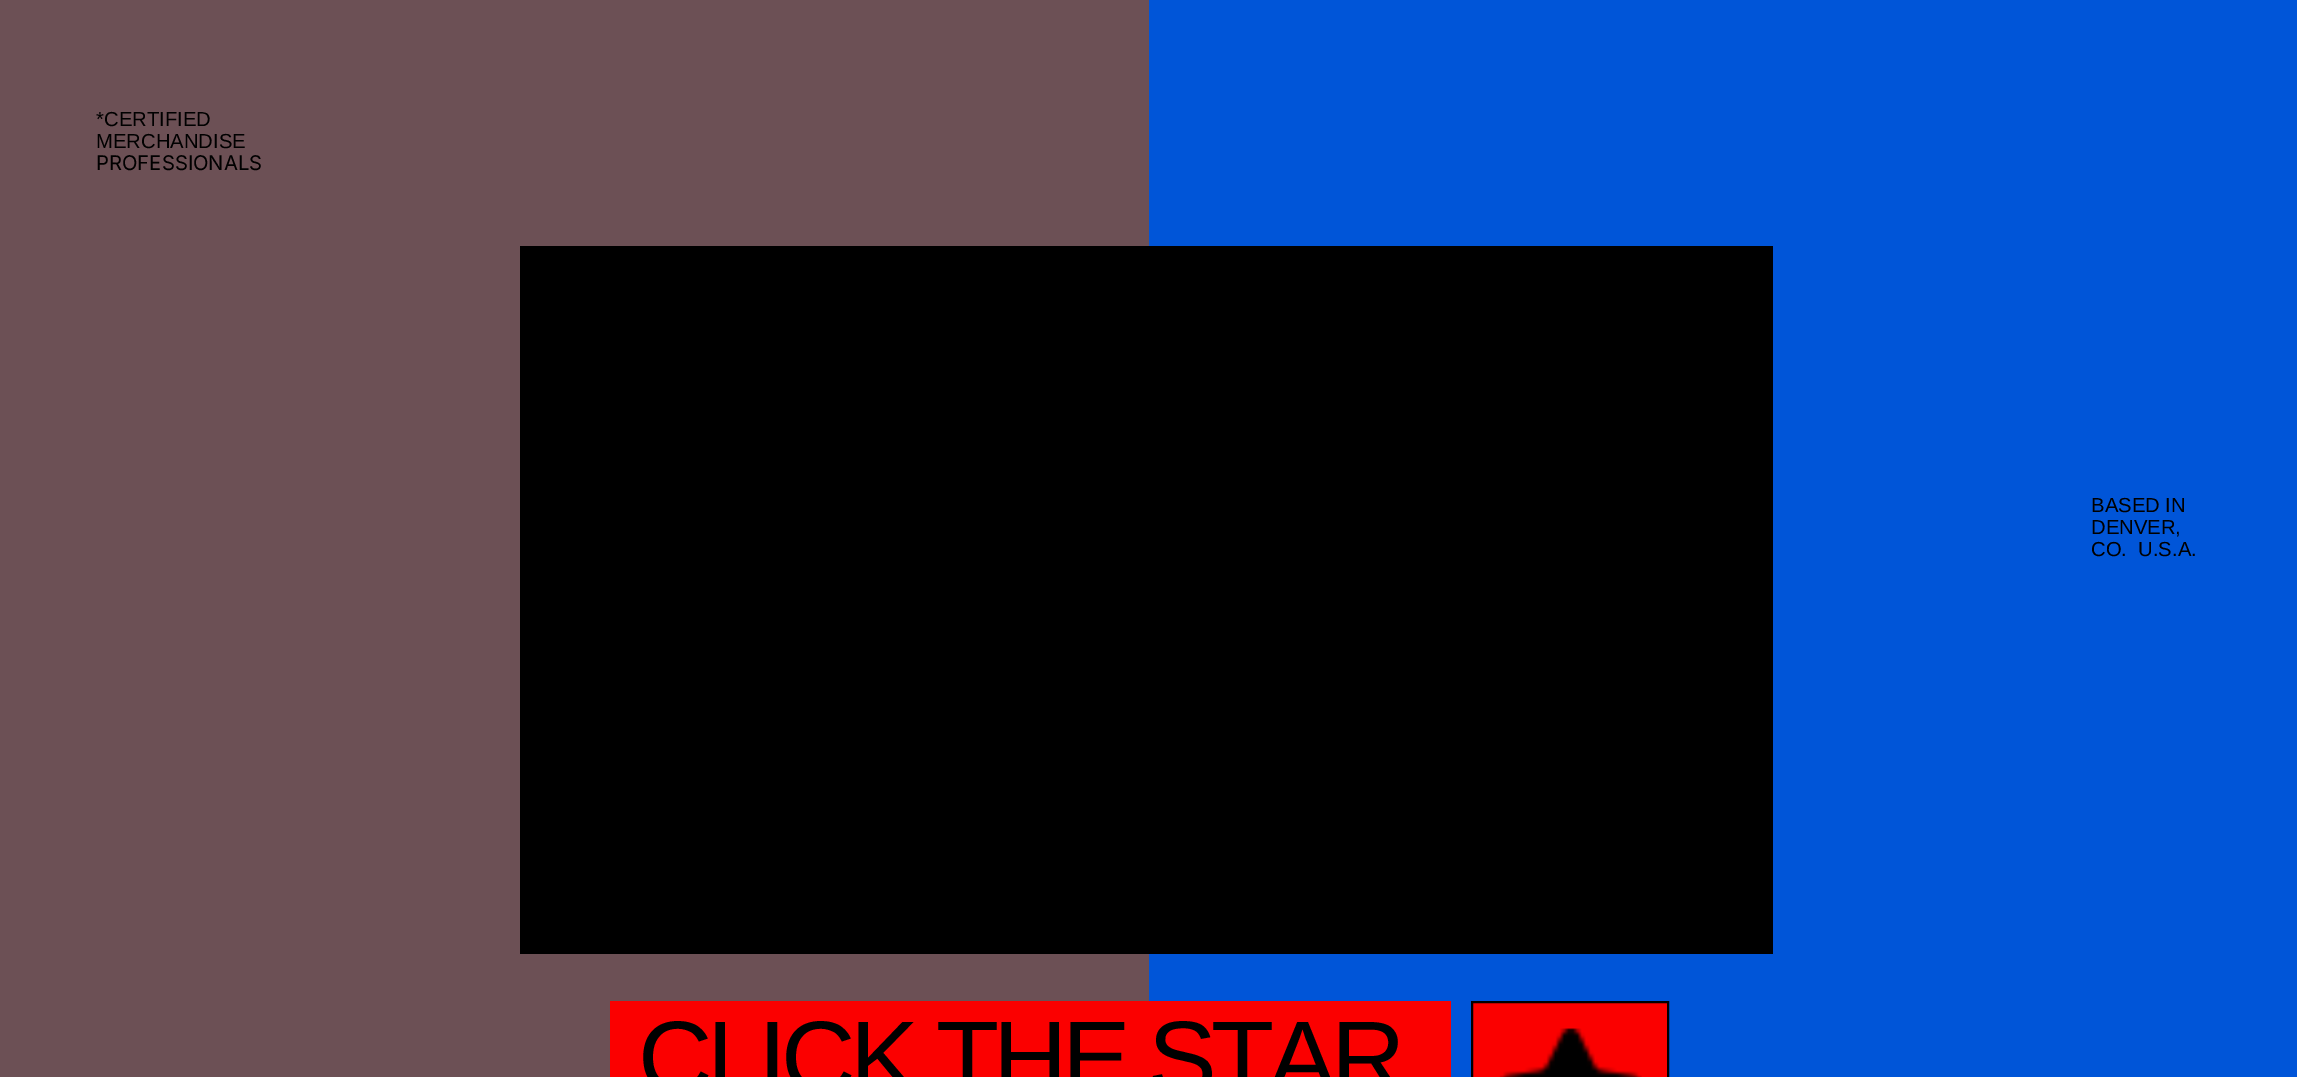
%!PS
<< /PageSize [2297 1077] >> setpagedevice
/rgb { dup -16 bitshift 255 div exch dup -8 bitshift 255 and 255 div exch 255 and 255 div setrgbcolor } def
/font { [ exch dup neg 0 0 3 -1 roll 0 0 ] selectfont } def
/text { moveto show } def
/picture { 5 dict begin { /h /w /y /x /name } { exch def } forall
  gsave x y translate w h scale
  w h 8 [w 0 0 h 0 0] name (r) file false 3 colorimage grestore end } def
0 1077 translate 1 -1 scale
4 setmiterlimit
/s1 { /LiberationSans-Regular 20.25 font 16#000000 rgb } def
/s2 { /Inter-Regular 20.25 font 16#000000 rgb } def
16#0055D8 rgb
0 0 2297 1077 rectfill
16#6C5055 rgb
0 0 1149 1077 rectfill
s1
(*CERTIFIED) 96 126 text
(MERCHANDISE) 96 148 text
s2
(PROFESSIONALS) 96 170 text
520 246 1253 708 rectfill
s1
(BASED IN) 2091 512 text
(DENVER,) 2091 534 text
(CO.  U.S.A.) 2091 556 text
16#FB0000 rgb
610 1001 841 76 rectfill
1472 1002 moveto 1668 1002 lineto 1668 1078 lineto 1472 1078 lineto closepath gsave fill grestore
16#000000 rgb
2 setlinewidth
stroke
(pic1.raw) 1499 1028 143 49 picture
/LiberationSans-Regular 103.25 font
638 1093 moveto -5.8 0 (CLICK THE STAR) ashow
showpage
